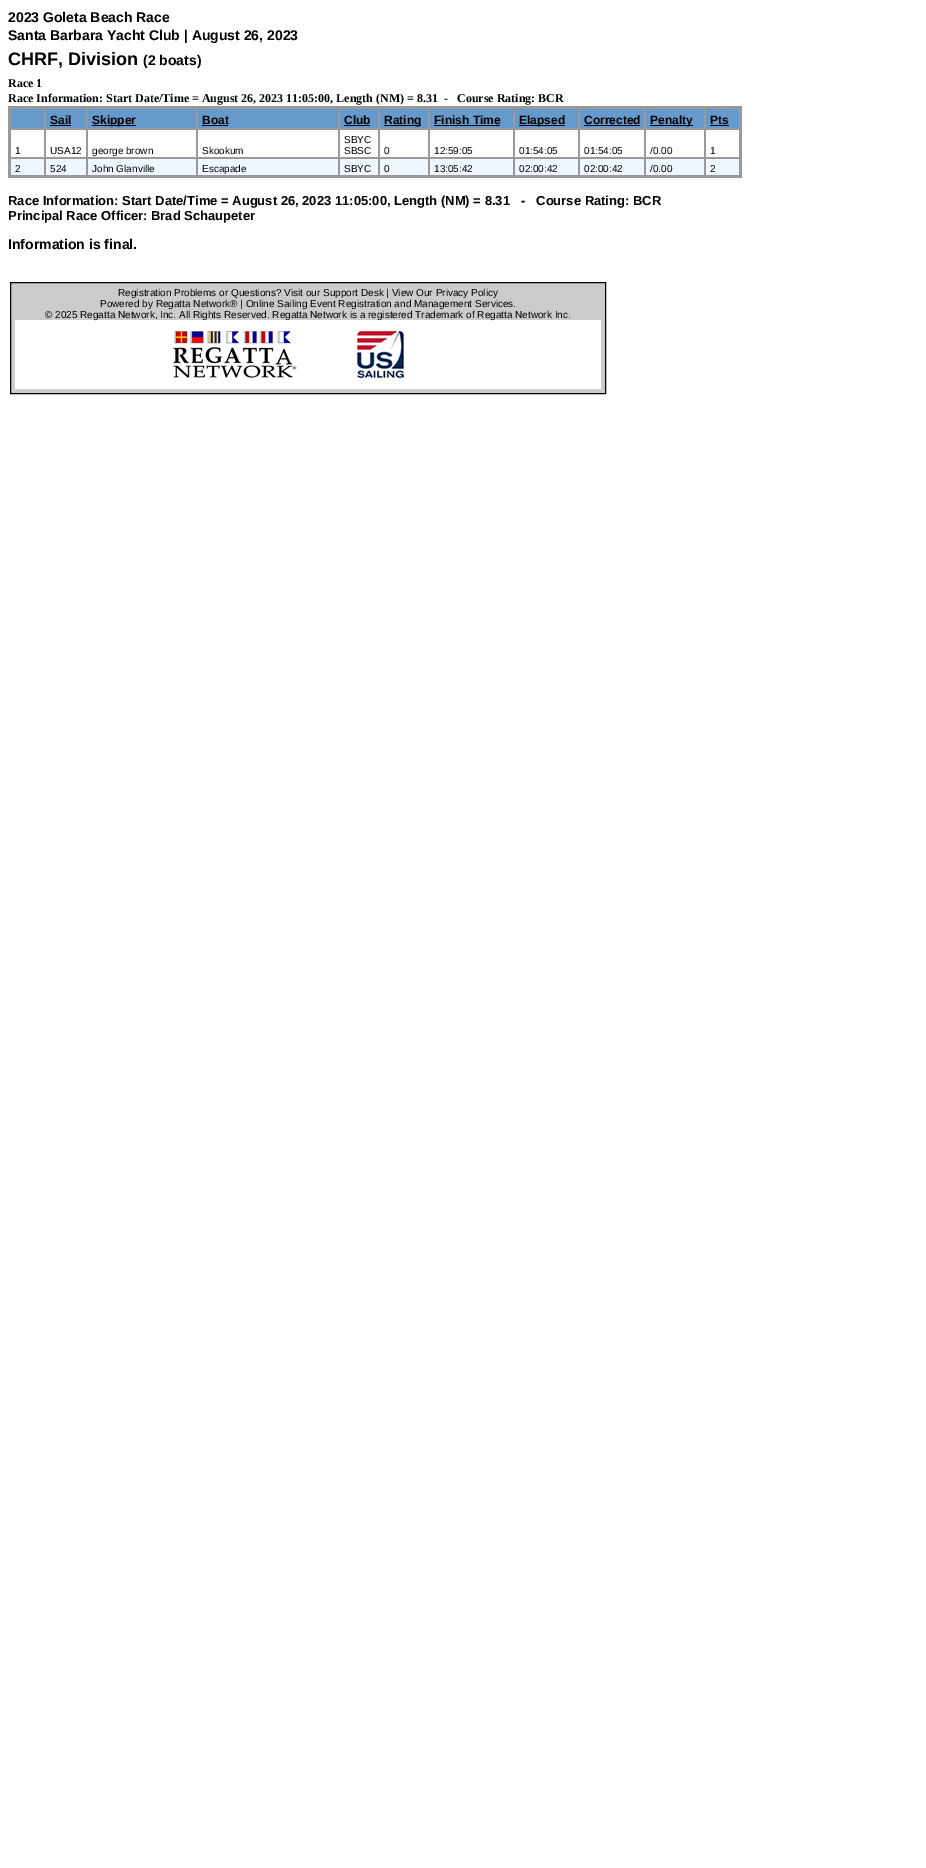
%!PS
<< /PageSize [926 1868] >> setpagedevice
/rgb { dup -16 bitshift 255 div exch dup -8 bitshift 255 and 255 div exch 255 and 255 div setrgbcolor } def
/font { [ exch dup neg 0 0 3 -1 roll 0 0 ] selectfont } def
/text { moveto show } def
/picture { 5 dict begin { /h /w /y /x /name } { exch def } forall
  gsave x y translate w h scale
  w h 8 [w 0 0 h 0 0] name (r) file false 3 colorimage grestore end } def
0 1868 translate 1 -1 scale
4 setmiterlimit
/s1 { /LiberationSans-Bold 14 font 16#000000 rgb } def
/s2 { /LiberationSans-Bold 18 font 16#000000 rgb } def
/s3 { /LiberationSerif-Bold 12 font 16#000000 rgb } def
/s4 { /LiberationSans-Bold 12 font 16#000000 rgb } def
/s5 { /LiberationSans-Regular 10 font 16#000000 rgb } def
/s6 { /LiberationSans-Bold 13 font 16#000000 rgb } def
16#FFFFFF rgb
0 0 926 1868 rectfill
s1
(2023 Goleta Beach Race) 8 22 text
(Santa Barbara Yacht Club | August 26, 2023) 8 40 text
s2
(CHRF, Division) 8 65 text
s1
(\(2 boats\)) 143 65 text
s3
(Race 1) 8 87 text
(Race Information: Start Date/Time = August 26, 2023 11:05:00, Length \(NM\) = 8.31  -   Course Rating: BCR) 8 102 text
16#999999 rgb
8 106 734 72 rectfill
16#6699CC rgb
11 109 33 19 rectfill
46 109 40 19 rectfill
s4
(Sail) 50 124 text
50 125 21 1 rectfill
16#6699CC rgb
88 109 108 19 rectfill
16#000000 rgb
92 125 44 1 rectfill
(Skipper) 92 124 text
16#6699CC rgb
198 109 140 19 rectfill
s4
(Boat) 202 124 text
202 125 26 1 rectfill
16#6699CC rgb
340 109 38 19 rectfill
s4
(Club) 344 124 text
344 125 26 1 rectfill
16#6699CC rgb
380 109 48 19 rectfill
16#000000 rgb
384 125 37 1 rectfill
(Rating) 384 124 text
16#6699CC rgb
430 109 83 19 rectfill
s4
(Finish Time) 434 124 text
434 125 66 1 rectfill
16#6699CC rgb
515 109 63 19 rectfill
16#000000 rgb
519 125 46 1 rectfill
(Elapsed) 519 124 text
16#6699CC rgb
580 109 64 19 rectfill
s4
(Corrected) 584 124 text
584 125 56 1 rectfill
16#6699CC rgb
646 109 58 19 rectfill
16#000000 rgb
650 125 43 1 rectfill
(Penalty) 650 124 text
16#6699CC rgb
706 109 33 19 rectfill
s4
(Pts) 710 124 text
710 125 19 1 rectfill
16#FFFFFF rgb
11 130 33 27 rectfill
s5
(1) 15 154 text
16#FFFFFF rgb
46 130 40 27 rectfill
s5
(USA12) 50 154 text
16#FFFFFF rgb
88 130 108 27 rectfill
s5
(george brown) 92 154 text
16#FFFFFF rgb
198 130 140 27 rectfill
s5
(Skookum) 202 154 text
16#FFFFFF rgb
340 130 38 27 rectfill
s5
(SBYC) 344 143 text
(SBSC) 344 154 text
16#FFFFFF rgb
380 130 48 27 rectfill
s5
(0) 384 154 text
16#FFFFFF rgb
430 130 83 27 rectfill
s5
(12:59:05) 434 154 text
16#FFFFFF rgb
515 130 63 27 rectfill
s5
(01:54:05) 519 154 text
16#FFFFFF rgb
580 130 64 27 rectfill
s5
(01:54:05) 584 154 text
16#FFFFFF rgb
646 130 58 27 rectfill
s5
(/0.00) 650 154 text
16#FFFFFF rgb
706 130 33 27 rectfill
s5
(1) 710 154 text
16#EEF6FF rgb
11 159 33 16 rectfill
s5
(2) 15 172 text
16#EEF6FF rgb
46 159 40 16 rectfill
s5
(524) 50 172 text
16#EEF6FF rgb
88 159 108 16 rectfill
s5
(John Glanville) 92 172 text
16#EEF6FF rgb
198 159 140 16 rectfill
s5
(Escapade) 202 172 text
16#EEF6FF rgb
340 159 38 16 rectfill
s5
(SBYC) 344 172 text
16#EEF6FF rgb
380 159 48 16 rectfill
s5
(0) 384 172 text
16#EEF6FF rgb
430 159 83 16 rectfill
s5
(13:05:42) 434 172 text
16#EEF6FF rgb
515 159 63 16 rectfill
s5
(02:00:42) 519 172 text
16#EEF6FF rgb
580 159 64 16 rectfill
s5
(02:00:42) 584 172 text
16#EEF6FF rgb
646 159 58 16 rectfill
s5
(/0.00) 650 172 text
16#EEF6FF rgb
706 159 33 16 rectfill
s5
(2) 710 172 text
s6
(Race Information: Start Date/Time = August 26, 2023 11:05:00, Length \(NM\) = 8.31) 8 205 text
(-   Course Rating: BCR) 521 205 text
(Principal Race Officer: Brad Schaupeter) 8 220 text
s1
(Information is final.) 8 249 text
16#CCCCCC rgb
10.5 282.5 moveto 605.5 282.5 lineto 605.5 393.5 lineto 10.5 393.5 lineto closepath gsave fill grestore
16#000000 rgb
stroke
s5
(Registration Problems or Questions? Visit our Support Desk | View Our Privacy Policy) 118 296 text
(Powered by Regatta Network® | Online Sailing Event Registration and Management Services.) 100 307 text
16#FFFFFF rgb
15 320 586 69 rectfill
s5
(© 2025 Regatta Network, Inc. All Rights Reserved. Regatta Network is a registered Trademark of Regatta Network Inc.) 45 318 text
(pic1.raw) 173 320 124 59 picture
(pic2.raw) 357 320 48 59 picture
showpage
